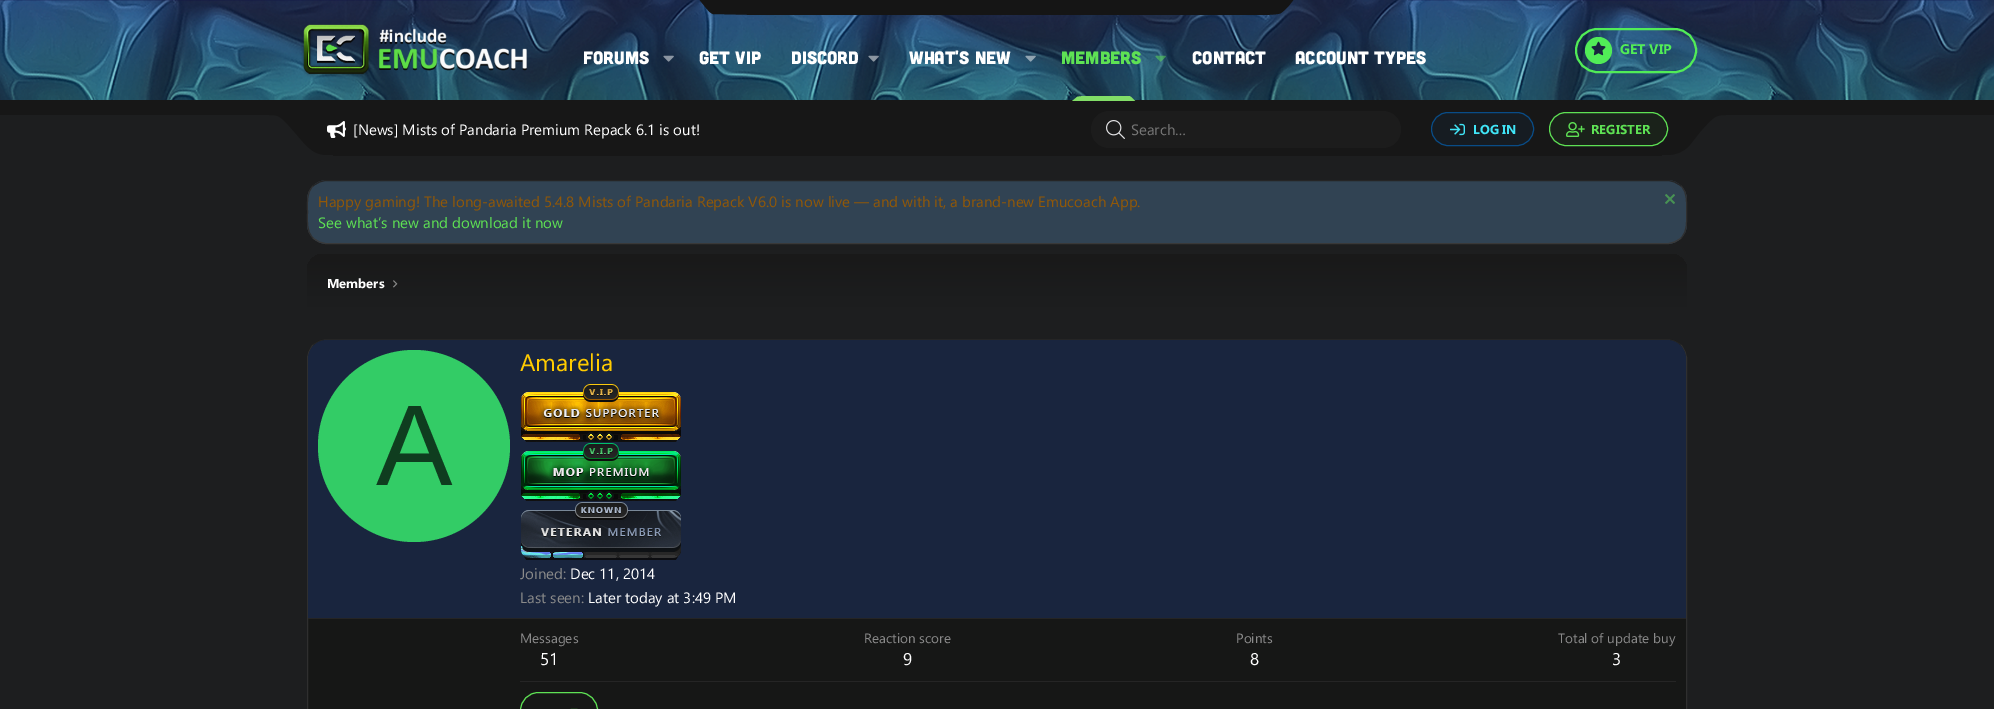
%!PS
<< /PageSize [1994 709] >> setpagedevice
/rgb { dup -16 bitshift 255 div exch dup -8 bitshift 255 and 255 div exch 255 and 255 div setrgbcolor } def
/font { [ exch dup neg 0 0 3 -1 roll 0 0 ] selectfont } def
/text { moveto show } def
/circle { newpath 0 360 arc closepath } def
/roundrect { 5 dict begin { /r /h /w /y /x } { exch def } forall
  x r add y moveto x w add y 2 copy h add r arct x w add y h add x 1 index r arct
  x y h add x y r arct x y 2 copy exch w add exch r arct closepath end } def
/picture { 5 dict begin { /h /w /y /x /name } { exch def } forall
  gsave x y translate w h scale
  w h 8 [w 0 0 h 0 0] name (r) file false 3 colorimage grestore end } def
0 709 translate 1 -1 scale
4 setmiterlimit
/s1 { /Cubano-Regular 18 font 16#FFFFFF rgb } def
/s2 { /Cubano-Regular 18 font 16#5EE154 rgb } def
/s3 { /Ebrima-Bold 14 font 16#51EC57 rgb } def
/s4 { /Ebrima-Regular 15 font 16#FFFFFF rgb } def
/s5 { /Ebrima-Regular 15 font 16#777777 rgb } def
/s6 { /Ebrima-Bold 13 font 16#40E5F7 rgb } def
/s7 { /Ebrima-Bold 13 font 16#5EE154 rgb } def
/s8 { /Ebrima-Regular 15 font 16#915808 rgb } def
/s9 { /Ebrima-Regular 15 font 16#5EE154 rgb } def
/s10 { /Ebrima-Bold 13 font 16#FFFFFF rgb } def
/s11 { /LiberationSans-Regular 115 font 16#0F3D1F rgb } def
/s12 { /Ebrima-Regular 24 font 16#FFCB00 rgb } def
/s13 { /Ebrima-Regular 15 font 16#8A8A8A rgb } def
/s14 { /Ebrima-Regular 13.5 font 16#8A8A8A rgb } def
/s15 { /Ebrima-Regular 17 font 16#FFFFFF rgb } def
16#1D1E1F rgb
0 0 1994 709 rectfill
(pic1.raw) 0 0 1994 100 picture
gsave
697 0 600 15 rectclip
16#151515 rgb
698 -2 moveto 702 3 lineto 704 5 709 13 713 14 curveto 758 15 lineto 1235 15 lineto 1237 15 1277 16 1281 13 curveto 1285 10 1288 7 1291 3 curveto 1295 -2 lineto 872 -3 lineto closepath fill
grestore
(pic2.raw) 301 24 226 53 picture
s1
(Forums) 583 64 text
(pic3.raw) 663 55 11 7 picture
(Get VIP) 699 64 text
(Discord) 791 64 text
(pic4.raw) 868 55 11 7 picture
(What's new) 909 64 text
(pic5.raw) 1025 55 11 7 picture
16#171717 rgb
0 100 1994 15 rectfill
gsave
1071 96 65 5 rectclip
16#82DE67 rgb
1077 97 moveto 1071 102 lineto 1136 102 lineto 1135 101 1131 96 1129 96 curveto 1123 96 1079 95 1077 97 curveto closepath fill
grestore
s2
(Members) 1061 64 text
(pic6.raw) 1155 55 11 7 picture
s1
(Contact) 1192 64 text
(Account types) 1295 64 text
16#51EC57 rgb
2 setlinewidth
1576 29 120 43 21.5 roundrect stroke
1598.5 50.5 13.5 circle fill
(pic7.raw) 1591 41 15 15 picture
s3
(GET VIP) 1620 54 text
16#171717 rgb
265 110 moveto 265 115 lineto 269 115 lineto 280 115 280 115 303 142 curveto 312 152 318 155 328 155 curveto 333 155 lineto 333 106 lineto 265 106 lineto closepath fill
333 115 1329 41 rectfill
(pic8.raw) 327 121 19 17 picture
s4
([News] Mists of Pandaria Premium Repack 6.1 is out!) 353 135 text
16#1C1C1C rgb
1091 111 310 37 18 roundrect fill
(pic9.raw) 1106 120 19 19 picture
s5
(Search…) 1131 135 text
16#161C22 rgb
1431.5 112.5 102 33 16.5 roundrect gsave fill grestore
16#094C87 rgb
1 setlinewidth
stroke
(pic10.raw) 1450 123 15 13 picture
s6
(LOG IN) 1473 134 text
16#171717 rgb
1662 131 moveto 1662 155 lineto 1667 155 lineto 1676 155 1683 152 1689 146 curveto 1700 132 lineto 1714 116 1716 115 1726 115 curveto 1730 115 lineto 1730 106 lineto 1662 106 lineto closepath fill
16#1A221A rgb
1549.5 112.5 118 33 16.5 roundrect gsave fill grestore
16#5EE154 rgb
stroke
(pic11.raw) 1566 122 19 15 picture
(REGISTER) 1591 134 text
16#314353 rgb
307 180 1380 64 20 roundrect fill
16#252525 rgb
313 186 moveto 317 182.5 322 180.5 327 180.5 curveto 1667 180.5 lineto 1672 180.5 1677 182.5 1681 186 curveto stroke
16#2F2F2F rgb
1681 186 moveto 1688 193 1686.5 203 1686.5 212 curveto 1686.5 221 1688 231 1681 238 curveto stroke
16#393939 rgb
1681 238 moveto 1677 241.5 1672 243.5 1667 243.5 curveto 327 243.5 lineto 322 243.5 317 241.5 313 238 curveto stroke
16#2F2F2F rgb
313 238 moveto 306 231 307.5 221 307.5 212 curveto 307.5 203 306 193 313 186 curveto stroke
s8
(Happy gaming! The long-awaited 5.4.8 Mists of Pandaria Repack V6.0 is now live — and with it, a brand-new Emucoach App.) 318 207 text
s9
(See what’s new and download it now) 318 228 text
(pic12.raw) 1665 194 10 10 picture
gsave 323 254 moveto 1671 254 lineto 1680 254 1687 261 1687 270 curveto 1687 339 lineto 307 339 lineto 307 270 lineto 307 261 314 254 323 254 curveto closepath clip newpath
<< /ShadingType 2 /ColorSpace /DeviceRGB /Coords [997 254 997 339] /Extend [true true] /Function << /FunctionType 3 /Domain [0 1] /Functions [<< /FunctionType 2 /Domain [0 1] /C0 [0.098 0.098 0.098] /C1 [0.114 0.118 0.122] /N 1 >> << /FunctionType 2 /Domain [0 1] /C0 [0.114 0.118 0.122] /C1 [0.114 0.118 0.122] /N 1 >>] /Bounds [0.63] /Encode [0 1 0 1] >> >> shfill grestore
s10
(Members) 327 288 text
(pic13.raw) 393 280 5 8 picture
16#161716 rgb
307 339 1380 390 20 roundrect fill
16#252525 rgb
313 345 moveto 317 341.5 322 339.5 327 339.5 curveto 1667 339.5 lineto 1672 339.5 1677 341.5 1681 345 curveto stroke
16#2F2F2F rgb
1681 345 moveto 1684.5 349 1686.5 354 1686.5 359 curveto 1686.5 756 lineto 1686.5 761 1684.5 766 1681 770 curveto stroke
313 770 moveto 309.5 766 307.5 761 307.5 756 curveto 307.5 359 lineto 307.5 354 309.5 349 313 345 curveto stroke
16#19253E rgb
327 340 moveto 1667 340 lineto 1677.5 340 1686 348.5 1686 359 curveto 1686 619 lineto 308 619 lineto 308 359 lineto 308 348.5 316.5 340 327 340 curveto closepath fill
16#252525 rgb
308 618 1378 1 rectfill
16#33CC66 rgb
414 446 96 circle fill
s11
(A) 376 485 text
s12
(Amarelia) 520 371 text
(pic14.raw) 521 384 160 58 picture
(pic15.raw) 521 443 160 58 picture
(pic16.raw) 521 502 160 58 picture
s13
(Joined:) 520 579 text
s4
(Dec 11, 2014) 570 579 text
s13
(Last seen:) 520 603 text
s4
(Later today at 3:49 PM) 588 603 text
s14
(Messages) 520 643 text
s15
(51) 540 665 text
s14
(Reaction score) 864 643 text
s15
(9) 903 665 text
s14
(Points) 1236 643 text
s15
(8) 1250 665 text
s14
(Total of update buy) 1558 643 text
s15
(3) 1612 665 text
16#252525 rgb
520 681 1156 1 rectfill
16#5EE154 rgb
520.5 692.5 77 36 18 roundrect stroke
(pic17.raw) 570 708 8 1 picture
showpage
